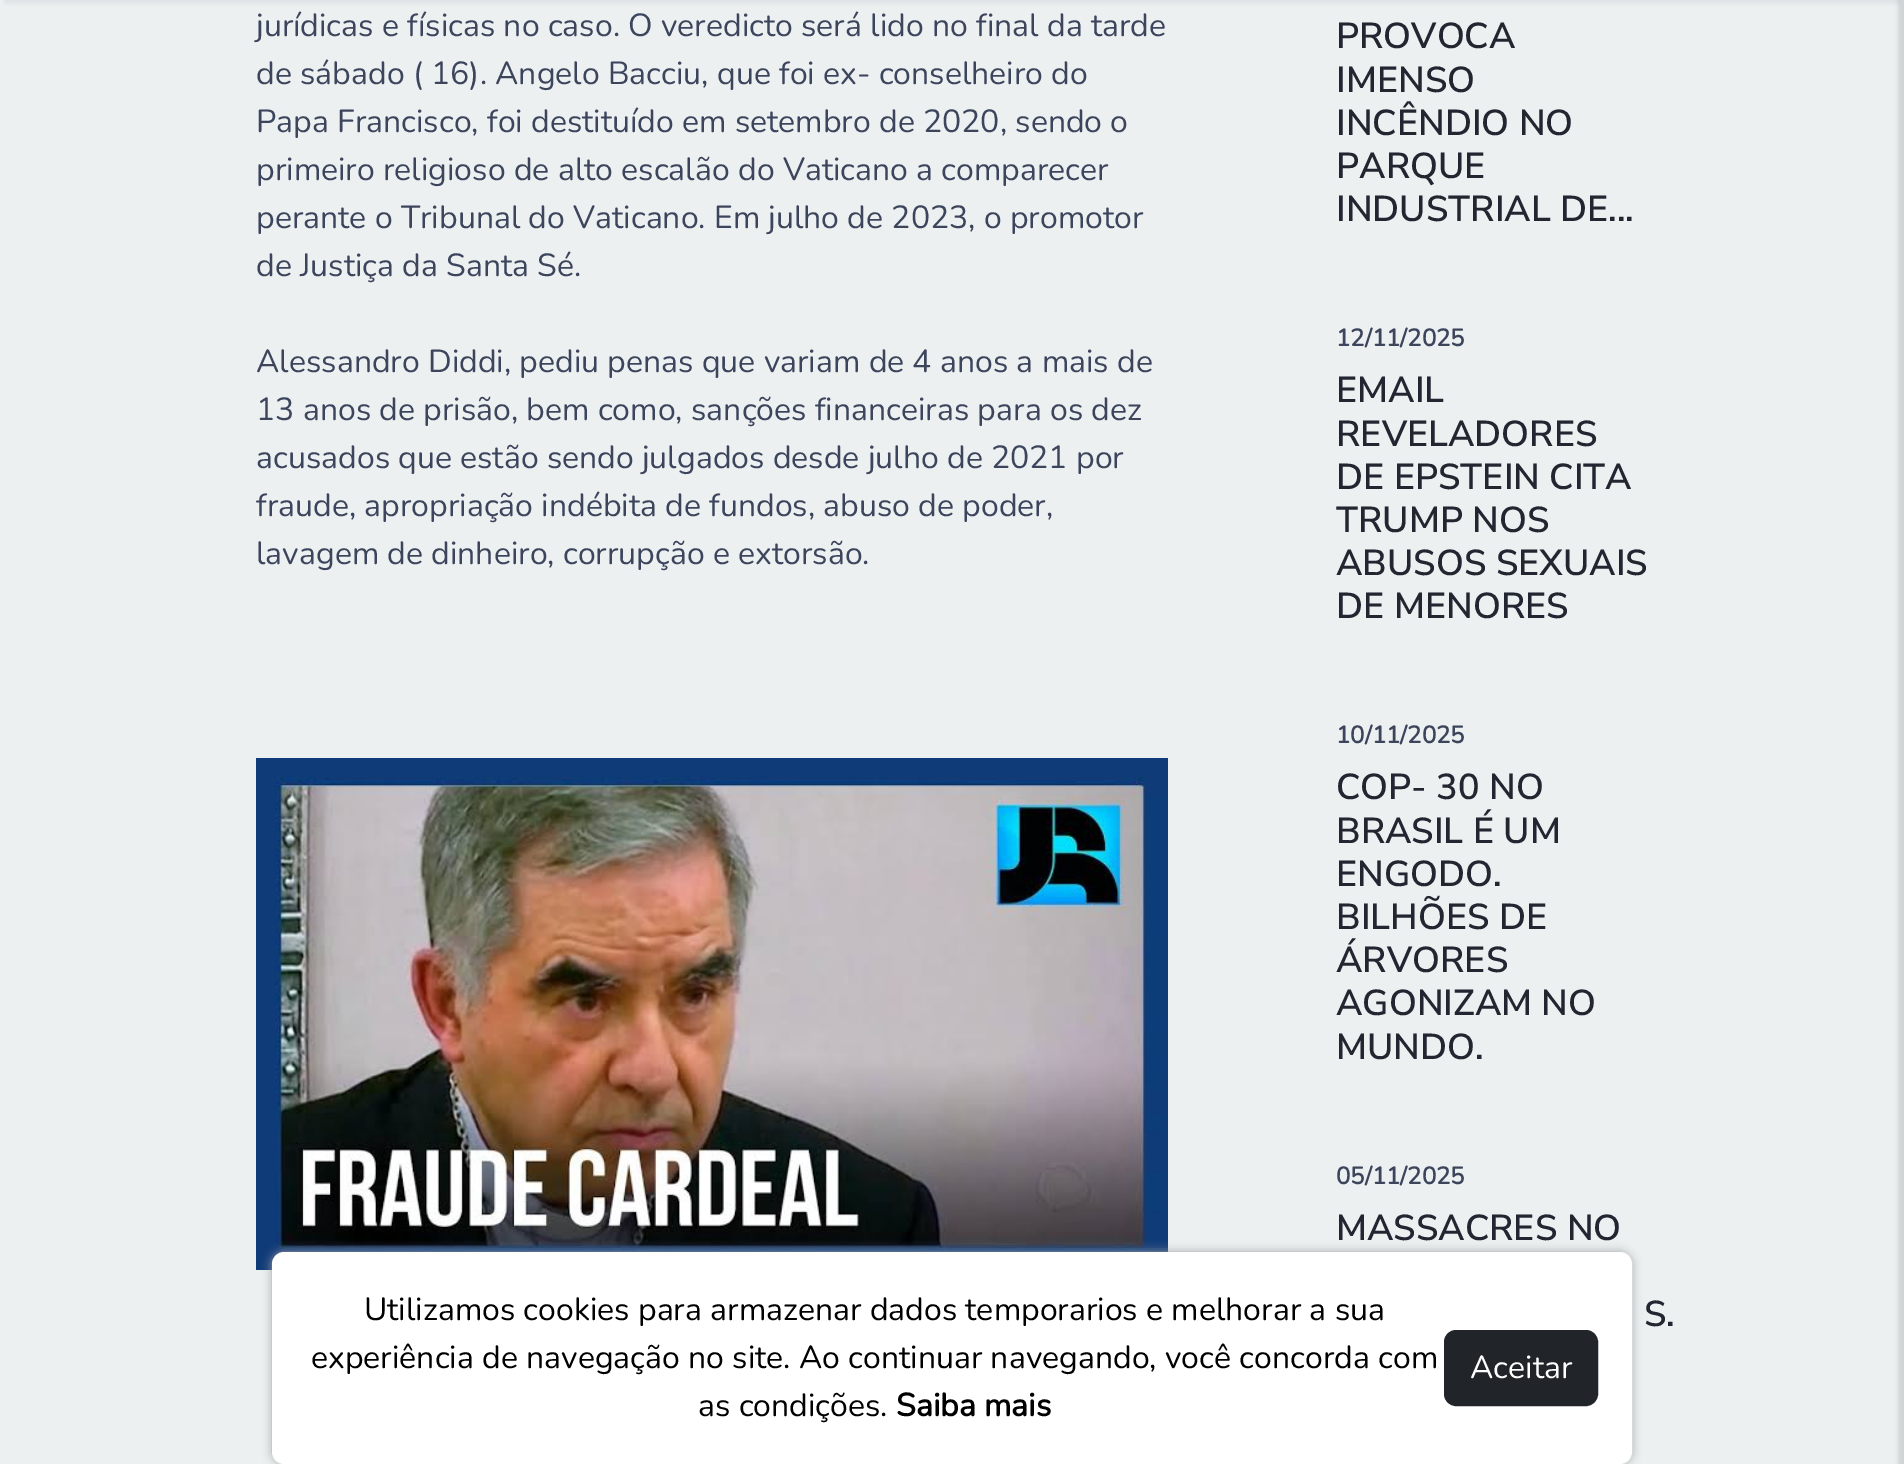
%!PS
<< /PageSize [1904 1464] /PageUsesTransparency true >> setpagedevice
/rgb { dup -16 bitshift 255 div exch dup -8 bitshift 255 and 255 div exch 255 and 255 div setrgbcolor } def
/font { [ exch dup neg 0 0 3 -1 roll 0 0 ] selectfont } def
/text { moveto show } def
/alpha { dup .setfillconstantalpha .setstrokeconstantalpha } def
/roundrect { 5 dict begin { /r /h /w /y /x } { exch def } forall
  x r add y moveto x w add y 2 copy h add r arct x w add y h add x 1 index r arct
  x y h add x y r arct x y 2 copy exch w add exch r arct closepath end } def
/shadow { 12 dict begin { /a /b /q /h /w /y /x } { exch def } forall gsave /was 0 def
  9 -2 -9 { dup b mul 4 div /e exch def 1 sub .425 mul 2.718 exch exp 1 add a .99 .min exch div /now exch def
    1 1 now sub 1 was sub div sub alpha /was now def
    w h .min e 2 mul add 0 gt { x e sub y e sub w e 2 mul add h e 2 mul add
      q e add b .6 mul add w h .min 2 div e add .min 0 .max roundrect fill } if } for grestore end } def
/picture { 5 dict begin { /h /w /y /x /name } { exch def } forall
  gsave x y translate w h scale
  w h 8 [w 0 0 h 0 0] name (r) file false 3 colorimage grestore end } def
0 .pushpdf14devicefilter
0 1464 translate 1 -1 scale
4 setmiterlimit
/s1 { /Nunito-ExtraLight 32 font 16#3D455C rgb } def
/s2 { /NunitoSans-SemiBold 36 font 16#212631 rgb } def
/s3 { /Nunito-Bold 24 font 16#3D455C rgb } def
/s4 { /Nunito-ExtraLight 32 font 16#000000 rgb } def
/s5 { /Nunito-Bold 32 font 16#000000 rgb } def
/s6 { /Nunito-ExtraLight 32 font 16#FFFFFF rgb } def
16#ECF0F1 rgb
0 0 1904 1464 rectfill
16#C5C6CC rgb
4 -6 1896 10 0 2 0.31 shadow
16#AAAAAA rgb
1898 -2 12 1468 0 2 0.42 shadow
s1
(jurídicas e físicas no caso. O veredicto será lido no final da tarde) 256 36 text
(de sábado \( 16\). Angelo Bacciu, que foi ex- conselheiro do) 256 84 text
(Papa Francisco, foi destituído em setembro de 2020, sendo o) 256 132 text
(primeiro religioso de alto escalão do Vaticano a comparecer) 256 180 text
(perante o Tribunal do Vaticano. Em julho de 2023, o promotor) 256 228 text
(de Justiça da Santa Sé.) 256 276 text
(Alessandro Diddi, pediu penas que variam de 4 anos a mais de) 256 372 text
(13 anos de prisão, bem como, sanções financeiras para os dez) 256 420 text
(acusados que estão sendo julgados desde julho de 2021 por) 256 468 text
(fraude, apropriação indébita de fundos, abuso de poder,) 256 516 text
(lavagem de dinheiro, corrupção e extorsão.) 256 564 text
(pic1.raw) 256 758 912 512 picture
s2
(PROVOCA) 1336 48 text
(IMENSO) 1336 92 text
(INCÊNDIO NO) 1336 135 text
(PARQUE) 1336 178 text
(INDUSTRIAL DE...) 1336 221 text
s3
(12/11/2025) 1336 346 text
s2
(EMAIL) 1336 402 text
(REVELADORES) 1336 446 text
(DE EPSTEIN CITA) 1336 489 text
(TRUMP NOS) 1336 532 text
(ABUSOS SEXUAIS) 1336 575 text
(DE MENORES) 1336 618 text
s3
(10/11/2025) 1336 743 text
s2
(COP- 30 NO) 1336 799 text
(BRASIL É UM) 1336 843 text
(ENGODO.) 1336 886 text
(BILHÕES DE) 1336 929 text
(ÁRVORES) 1336 972 text
(AGONIZAM NO) 1336 1015 text
(MUNDO.) 1336 1059 text
s3
(05/11/2025) 1336 1184 text
s2
(MASSACRES NO) 1336 1240 text
(S.) 1644 1326 text
16#A1A3A4 rgb
272 1252 1360 212 12 5 1 shadow
16#FFFFFF rgb
273 1253 1358 210 11 roundrect gsave fill grestore
2 setlinewidth
stroke
s4
(Utilizamos cookies para armazenar dados temporarios e melhorar a sua) 364 1320 text
(experiência de navegação no site. Ao continuar navegando, você concorda com) 311 1368 text
(as condições.) 698 1416 text
s5
(Saiba mais) 896 1416 text
16#212529 rgb
1445 1331 152 74 11 roundrect gsave fill grestore
stroke
s6
(Aceitar) 1470 1378 text
.poppdf14devicefilter showpage
